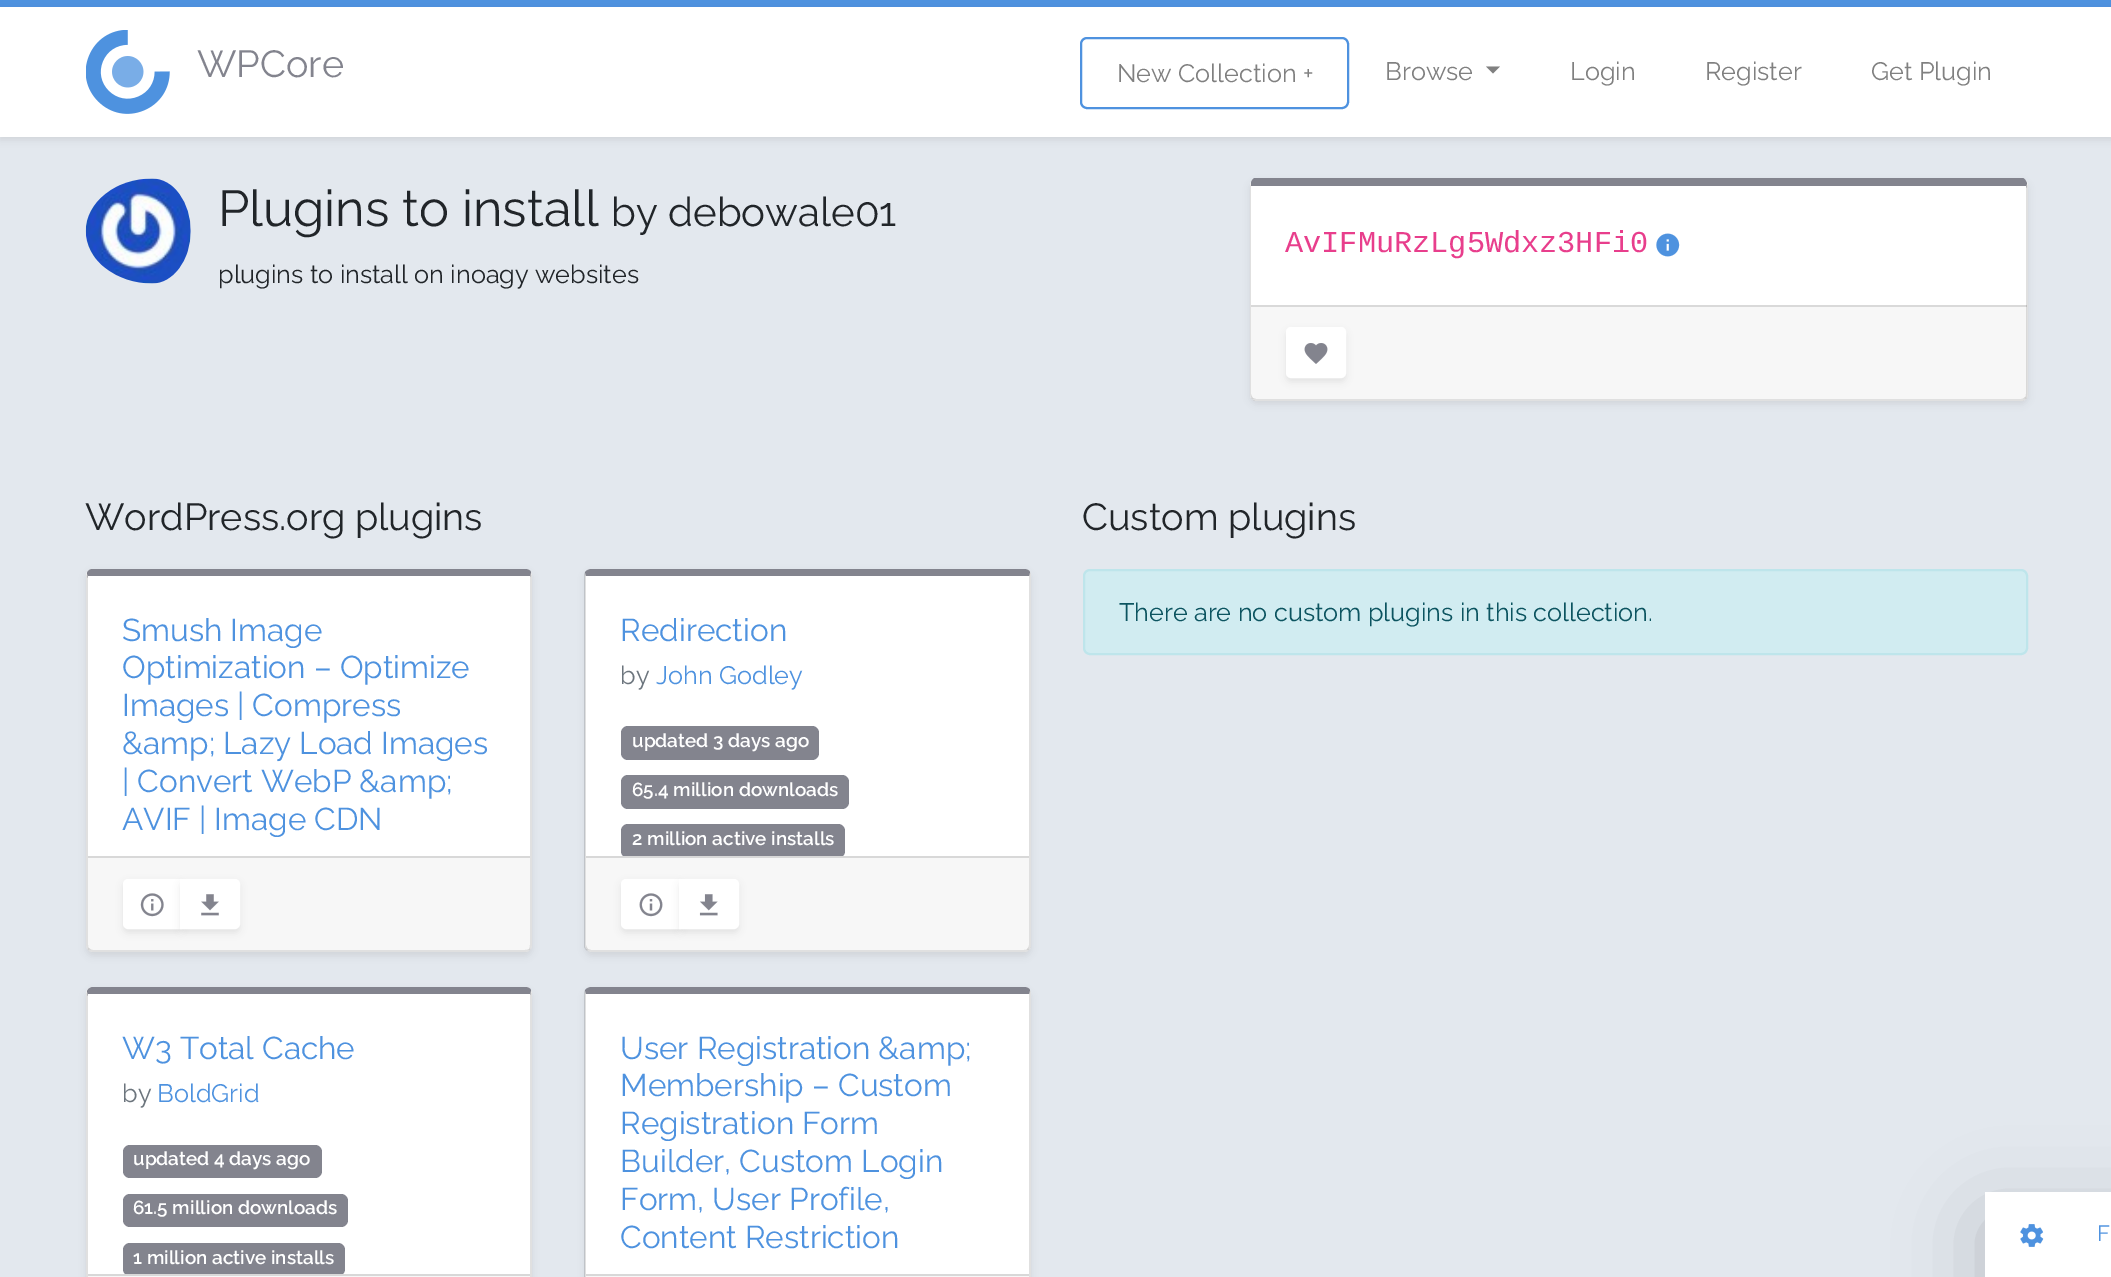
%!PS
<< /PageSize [2111 1277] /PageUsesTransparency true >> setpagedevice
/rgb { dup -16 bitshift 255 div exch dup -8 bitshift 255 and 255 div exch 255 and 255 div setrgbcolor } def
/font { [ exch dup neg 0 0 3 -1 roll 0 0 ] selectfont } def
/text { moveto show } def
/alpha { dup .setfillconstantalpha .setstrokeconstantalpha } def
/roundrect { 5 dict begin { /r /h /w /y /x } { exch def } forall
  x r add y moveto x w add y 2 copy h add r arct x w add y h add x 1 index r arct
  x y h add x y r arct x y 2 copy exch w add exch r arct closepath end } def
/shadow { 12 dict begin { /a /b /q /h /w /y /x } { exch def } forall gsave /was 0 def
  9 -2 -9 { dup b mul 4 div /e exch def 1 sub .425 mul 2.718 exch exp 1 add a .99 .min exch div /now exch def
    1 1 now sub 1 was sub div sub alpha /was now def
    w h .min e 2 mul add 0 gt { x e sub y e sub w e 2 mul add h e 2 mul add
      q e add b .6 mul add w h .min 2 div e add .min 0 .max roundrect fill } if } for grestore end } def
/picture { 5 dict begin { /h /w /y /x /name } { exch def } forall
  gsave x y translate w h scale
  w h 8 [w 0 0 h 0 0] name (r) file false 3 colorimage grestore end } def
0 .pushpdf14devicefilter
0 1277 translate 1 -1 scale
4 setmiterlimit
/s1 { /Raleway-Regular 37.75 font 16#83848E rgb } def
/s2 { /Raleway-Regular 25.2 font 16#808080 rgb } def
/s3 { /Raleway-Regular 50.5 font 16#212529 rgb } def
/s4 { /Raleway-Regular 40.25 font 16#212529 rgb } def
/s5 { /Raleway-Regular 25.2 font 16#212529 rgb } def
/s6 { /LiberationMono-Regular 30.25 font 16#E83E8C rgb } def
/s7 { /Raleway-Regular 37.75 font 16#212529 rgb } def
/s8 { /Raleway-Regular 31.5 font 16#4E92DF rgb } def
/s9 { /Raleway-Regular 25.2 font 16#6C757D rgb } def
/s10 { /Raleway-Regular 25.2 font 16#4E92DF rgb } def
/s11 { /Raleway-SemiBold 18.9 font 16#FFFFFF rgb } def
/s12 { /Raleway-Regular 25.2 font 16#0C5460 rgb } def
/s13 { /Raleway-Regular 22 font 16#4E92DF rgb } def
16#E3E8EE rgb
0 0 2111 1277 rectfill
16#4E92DF rgb
0 0 2111 7 rectfill
16#000000 rgb
0 11 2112 129 0 3.5 0.07 shadow
16#FFFFFF rgb
0 7 2111 130 rectfill
(pic1.raw) 86 30 84 84 picture
s1
(WPCore) 197 77 text
16#4E92DF rgb
2 setlinewidth
1081 38 267 70 6 roundrect stroke
s2
(New Collection +) 1117 82 text
(Browse) 1385 80 text
1486 66.5 moveto 1500 66.5 lineto 1493 73.5 lineto closepath fill
(Login) 1570 80 text
(Register) 1705 80 text
(Get Plugin) 1871 80 text
(pic2.raw) 85 178 106 106 picture
s3
(Plugins to install) 218 226 text
s4
(by debowale01) 611 226 text
s5
(plugins to install on inoagy websites) 218 283 text
16#000000 rgb
1250 182 778 222 7 3.5 0.07 shadow
16#FFFFFF rgb
1250 179 778 222 7 roundrect fill
16#83848E rgb
1251 183 moveto 1251 181 1253 179 1254 178 curveto 2023 178 lineto 2025 179 2026 181 2027 183 curveto 2026 188 lineto 2026 186 lineto 1251 186 lineto closepath fill
0.12 alpha
16#000000 rgb
2027 183 moveto 2028 186 lineto 2028 394 lineto 2028 396 2027 398 2026 399 curveto 2025 397 lineto 2026 397 2026 395 2026 394 curveto 2026 188 lineto closepath fill
1254 401 moveto 1252 399 lineto 1253 398 lineto 1254 398 1255 399 1256 399 curveto 2021 399 lineto 2023 399 2024 398 2025 397 curveto 2026 399 lineto 2023 401 lineto closepath fill
1252 399 moveto 1251 397 1250 396 1250 394 curveto 1250 186 lineto 1251 183 lineto 1251 186 lineto 1251 394 lineto 1251 395 1252 397 1253 398 curveto closepath fill
1 alpha
s6
(AvIFMuRzLg5Wdxz3HFi0) 1285 252 text
(pic3.raw) 1656 233 24 24 picture
0.03 alpha
16#000000 rgb
1251 305 776 94 rectfill
0.12 alpha
1251 305 776 2 rectfill
1 alpha
1286 331 60 51 5 3.5 0.07 shadow
16#FFFFFF rgb
1287 328 58 49 4 roundrect gsave fill grestore
stroke
(pic4.raw) 1304 343 24 21 picture
s7
(WordPress.org plugins) 85 530 text
16#000000 rgb
86 572 446 384 7 3.5 0.07 shadow
16#FFFFFF rgb
86 569 446 383 7 roundrect fill
16#83848E rgb
93 569 moveto 90 569 88 570 87 573 curveto 88 578 lineto 88 576 lineto 530 576 lineto 530 577 lineto 531 572 lineto 530 570 528 569 525 569 curveto closepath fill
0.12 alpha
16#000000 rgb
532 945 moveto 532 576 lineto 531 572 lineto 530 577 lineto 530 945 lineto 530 946 530 948 529 949 curveto 530 950 lineto 531 949 532 947 532 945 curveto closepath fill
93 952 moveto 525 952 lineto 527 952 529 951 530 950 curveto 529 949 lineto 528 950 526 950 525 950 curveto 93 950 lineto 91 950 90 949 89 948 curveto 88 950 lineto 89 951 91 952 93 952 curveto closepath fill
87 573 moveto 86 576 lineto 86 945 lineto 86 947 87 949 88 950 curveto 89 948 lineto 88 948 88 946 88 945 curveto 88 578 lineto closepath fill
1 alpha
s8
(Smush Image) 122 641 text
(Optimization – Optimize) 122 678 text
(Images | Compress) 122 716 text
(&amp; Lazy Load Images) 122 754 text
(| Convert WebP &amp;) 122 792 text
(AVIF | Image CDN) 122 830 text
0.03 alpha
16#000000 rgb
88 858 442 92 rectfill
1 alpha
16#D8D8D8 rgb
88 856 442 2 rectfill
16#000000 rgb
123 882 59 51 5 3.5 0.07 shadow
16#FFFFFF rgb
128 880 moveto 181 880 lineto 181 928 lineto 128 928 lineto 126 928 124 926 124 924 curveto 124 884 lineto 124 882 126 880 128 880 curveto closepath gsave fill grestore
stroke
(pic5.raw) 140 893 24 24 picture
16#000000 rgb
180 882 60 51 5 3.5 0.07 shadow
16#FFFFFF rgb
181 880 moveto 235 880 lineto 237 880 239 882 239 884 curveto 239 924 lineto 239 926 237 928 235 928 curveto 181 928 lineto closepath gsave fill grestore
stroke
(pic6.raw) 201 894 18 22 picture
16#000000 rgb
585 572 446 384 7 3.5 0.07 shadow
16#FFFFFF rgb
585 569 446 383 7 roundrect fill
16#83848E rgb
592 569 moveto 589 569 587 570 585 572 curveto 586 576 lineto 1029 576 lineto 1030 572 lineto 1029 570 1027 569 1024 569 curveto closepath fill
0.12 alpha
16#000000 rgb
1031 947 moveto 1029 950 lineto 1027 949 lineto 1028 948 1029 947 1029 945 curveto 1029 576 lineto 1030 572 lineto 1031 574 lineto closepath fill
592 952 moveto 1024 952 lineto 1026 952 1028 951 1029 950 curveto 1027 949 lineto 1027 950 1025 950 1024 950 curveto 591 950 lineto 588 949 lineto 586 950 lineto 588 951 590 952 592 952 curveto closepath fill
584 574 moveto 585 572 lineto 586 576 lineto 586 945 lineto 586 946 587 948 588 949 curveto 586 950 lineto 584 947 lineto closepath fill
1 alpha
s8
(Redirection) 620 641 text
s9
(by) 620 684 text
s10
(John Godley) 656 684 text
16#83848E rgb
621 726 198 34 7 roundrect fill
s11
(updated 3 days ago) 632 747 text
16#83848E rgb
621 775 228 34 7 roundrect fill
s11
(65.4 million downloads) 632 796 text
16#D8D8D8 rgb
586 856 443 2 rectfill
gsave
586 576 443 280 rectclip
16#83848E rgb
621 824 224 34 7 roundrect fill
grestore
s11
(2 million active installs) 632 845 text
0.03 alpha
16#000000 rgb
586 858 443 92 rectfill
1 alpha
621 882 60 51 5 3.5 0.07 shadow
16#FFFFFF rgb
626 880 moveto 680 880 lineto 680 928 lineto 626 928 lineto 624 928 622 926 622 924 curveto 622 884 lineto 622 882 624 880 626 880 curveto closepath gsave fill grestore
stroke
(pic7.raw) 639 893 24 24 picture
16#000000 rgb
679 882 60 51 5 3.5 0.07 shadow
16#FFFFFF rgb
680 880 moveto 734 880 lineto 736 880 738 882 738 884 curveto 738 924 lineto 738 926 736 928 734 928 curveto 680 928 lineto closepath gsave fill grestore
stroke
(pic8.raw) 699 894 19 22 picture
16#000000 rgb
86 991 446 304 7 3.5 0.07 shadow
16#FFFFFF rgb
86 987 446 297 7 roundrect fill
16#83848E rgb
93 987 moveto 90 987 88 989 87 991 curveto 88 996 lineto 88 994 lineto 530 994 lineto 530 995 lineto 531 990 lineto 530 988 528 987 525 987 curveto closepath fill
0.12 alpha
16#000000 rgb
532 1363 moveto 532 994 lineto 531 990 lineto 530 995 lineto 530 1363 lineto 530 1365 529 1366 528 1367 curveto 530 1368 lineto 531 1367 532 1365 532 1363 curveto closepath fill
87 991 moveto 86 994 lineto 86 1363 lineto 86 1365 87 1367 88 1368 curveto 89 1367 lineto 88 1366 88 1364 88 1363 curveto 88 996 lineto closepath fill
1 alpha
s8
(W3 Total Cache) 122 1059 text
s9
(by) 122 1102 text
s10
(BoldGrid) 157 1102 text
16#83848E rgb
123 1145 199 33 7 roundrect fill
s11
(updated 4 days ago) 133 1165 text
16#83848E rgb
123 1194 225 33 7 roundrect fill
s11
(61.5 million downloads) 133 1214 text
16#D8D8D8 rgb
88 1274 442 2 rectfill
gsave
88 994 442 280 rectclip
16#83848E rgb
123 1243 222 33 7 roundrect fill
grestore
s11
(1 million active installs) 133 1264 text
16#F7F7F7 rgb
88 1276 442 1 rectfill
16#000000 rgb
585 991 446 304 7 3.5 0.07 shadow
16#FFFFFF rgb
585 987 446 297 7 roundrect fill
16#83848E rgb
592 987 moveto 589 987 587 988 585 990 curveto 586 994 lineto 1029 994 lineto 1030 990 lineto 1029 988 1027 987 1024 987 curveto closepath fill
0.12 alpha
16#000000 rgb
1031 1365 moveto 1029 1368 lineto 1027 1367 lineto 1028 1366 1029 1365 1029 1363 curveto 1029 994 lineto 1030 990 lineto 1031 992 lineto closepath fill
584 992 moveto 585 990 lineto 586 994 lineto 586 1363 lineto 586 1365 587 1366 588 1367 curveto 587 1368 lineto 584 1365 lineto closepath fill
1 alpha
s8
(User Registration &amp;) 620 1059 text
(Membership – Custom) 620 1096 text
(Registration Form) 620 1134 text
(Builder, Custom Login) 620 1172 text
(Form, User Profile,) 620 1210 text
(Content Restriction) 620 1248 text
16#F7F7F7 rgb
586 1276 443 1 rectfill
16#D8D8D8 rgb
586 1274 443 2 rectfill
s7
(Custom plugins) 1082 530 text
16#D1ECF1 rgb
1084 570 943 84 6 roundrect gsave fill grestore
16#BEE5EB rgb
stroke
s12
(There are no custom plugins in this collection.) 1119 621 text
16#000000 rgb
1985 1220 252 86 0 42 0.18 shadow
16#FFFFFF rgb
1985 1192 126 85 rectfill
(pic9.raw) 2020 1224 24 23 picture
s13
(F) 2097 1241 text
.poppdf14devicefilter showpage
